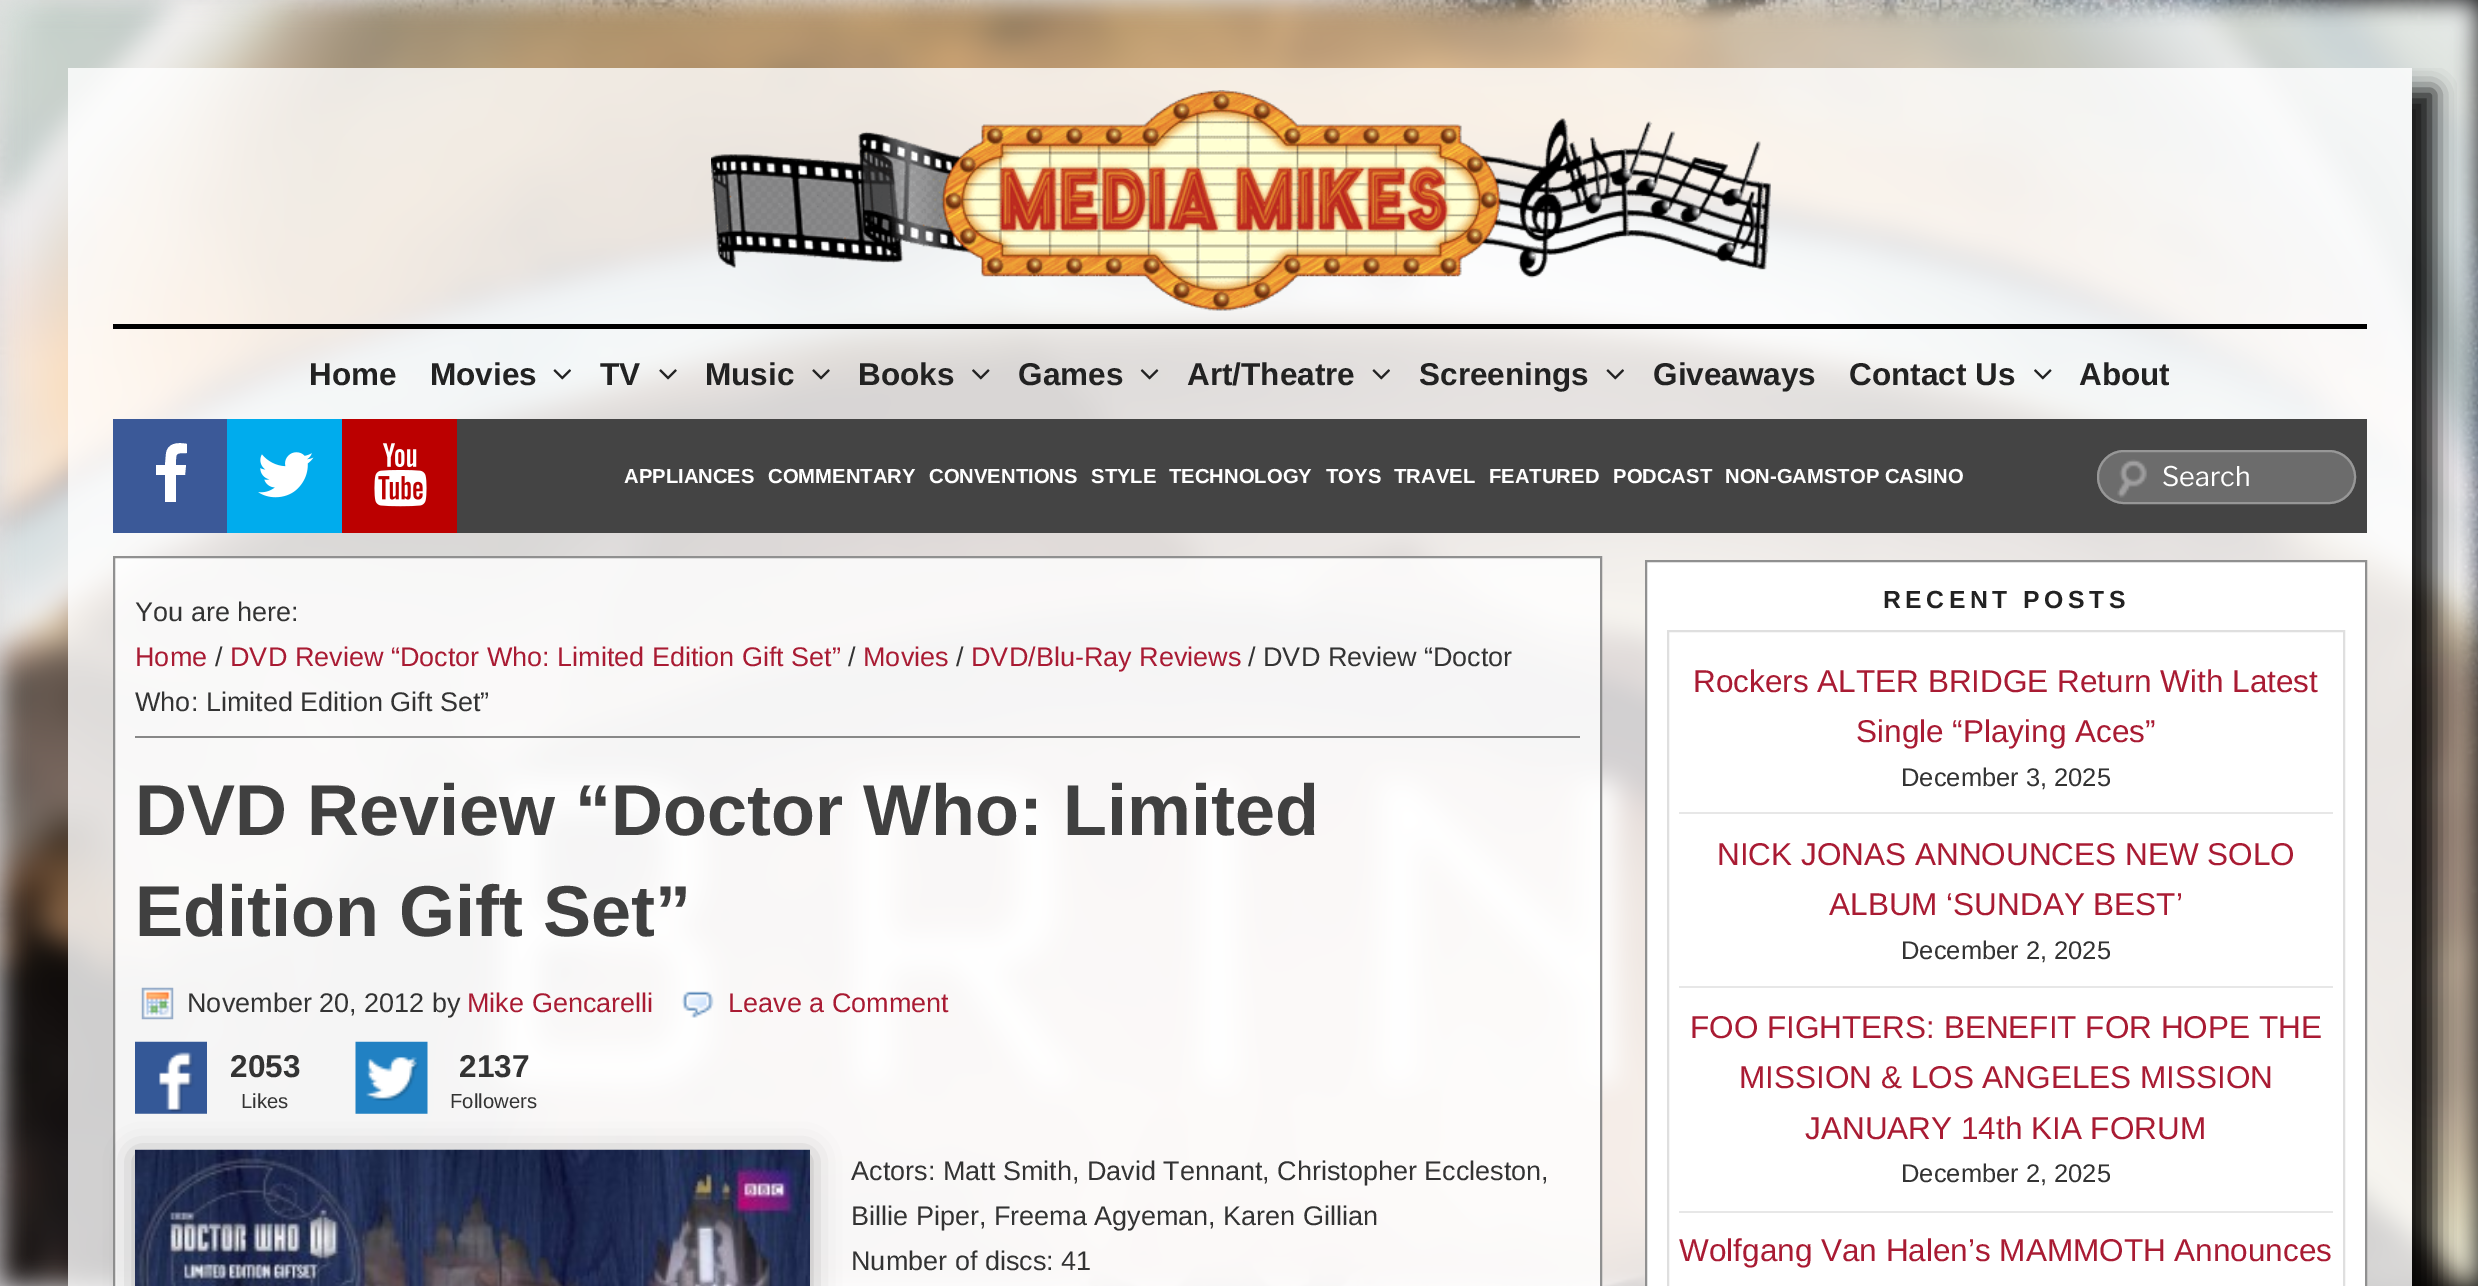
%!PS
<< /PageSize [2478 1286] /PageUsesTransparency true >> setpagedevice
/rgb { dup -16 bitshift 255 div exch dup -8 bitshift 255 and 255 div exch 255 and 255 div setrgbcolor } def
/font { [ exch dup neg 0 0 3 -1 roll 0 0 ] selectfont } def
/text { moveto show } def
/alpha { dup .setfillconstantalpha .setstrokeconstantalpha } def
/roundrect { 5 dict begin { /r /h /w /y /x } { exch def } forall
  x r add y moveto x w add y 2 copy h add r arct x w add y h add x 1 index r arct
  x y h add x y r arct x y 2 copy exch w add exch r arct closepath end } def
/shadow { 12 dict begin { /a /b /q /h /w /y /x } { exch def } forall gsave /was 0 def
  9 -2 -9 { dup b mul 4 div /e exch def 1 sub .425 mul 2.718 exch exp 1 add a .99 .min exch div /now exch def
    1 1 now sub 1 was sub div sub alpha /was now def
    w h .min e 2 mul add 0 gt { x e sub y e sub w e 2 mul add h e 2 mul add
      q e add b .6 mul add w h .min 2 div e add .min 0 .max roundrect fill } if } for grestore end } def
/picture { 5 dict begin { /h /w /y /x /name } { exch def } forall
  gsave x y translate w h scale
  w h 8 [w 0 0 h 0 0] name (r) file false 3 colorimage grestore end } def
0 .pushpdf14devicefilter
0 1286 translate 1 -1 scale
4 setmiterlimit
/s1 { /LiberationSans-Bold 31.5 font 16#222222 rgb } def
/s2 { /LiberationSans-Bold 20.25 font 16#FFFFFF rgb } def
/s3 { /LibreFranklin-Regular 27 font 16#FFFFFF rgb } def
/s4 { /LiberationSans-Regular 27 font 16#333333 rgb } def
/s5 { /LiberationSans-Regular 27 font 16#A91B33 rgb } def
/s6 { /LiberationSans-Bold 72 font 16#404040 rgb } def
/s7 { /LiberationSans-Bold 31.5 font 16#333333 rgb } def
/s8 { /LiberationSans-Regular 20.25 font 16#333333 rgb } def
/s9 { /LiberationSans-Regular 31.5 font 16#A91B33 rgb } def
/s10 { /LiberationSans-Regular 25.5 font 16#333333 rgb } def
16#FFFFFF rgb
0 0 2478 1286 rectfill
(pic1.raw) 0 0 2478 1286 picture
(pic2.raw) 0 0 2478 1286 picture
gsave
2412 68 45 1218 rectclip
16#000000 rgb
90 90 2345 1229 0 11 0.88 shadow
grestore
0.8 alpha
68 68 2344 1218 rectfill
1 alpha
(pic3.raw) 711 90 1060 221 picture
16#000000 rgb
113 324 2254 5 rectfill
s1
(Home) 309 385 text
(Movies) 430 385 text
(pic4.raw) 553 369 18 11 picture
(TV) 600 385 text
(pic5.raw) 659 369 18 11 picture
(Music) 705 385 text
(pic6.raw) 812 369 18 11 picture
(Books) 858 385 text
(pic7.raw) 972 369 18 11 picture
(Games) 1018 385 text
(pic8.raw) 1140 369 19 11 picture
(Art/Theatre) 1187 385 text
(pic9.raw) 1372 369 18 11 picture
(Screenings) 1419 385 text
(pic10.raw) 1606 369 18 11 picture
(Giveaways) 1653 385 text
(Contact Us) 1849 385 text
(pic11.raw) 2034 369 18 11 picture
(About) 2079 385 text
16#444444 rgb
457 419 1910 114 rectfill
16#3B5998 rgb
113 419 114 114 rectfill
16#FFFFFF rgb
156 475 moveto 156 465 lineto 165 465 lineto 166 454 lineto 167 443 178 442 187 444 curveto 187 453 lineto 175 453 176 453 176 465 curveto 186 465 lineto 185 475 lineto 176 475 lineto 176 502 lineto 165 502 lineto 165 475 lineto closepath fill
16#00ACED rgb
227 419 115 114 rectfill
(pic12.raw) 258 452 56 46 picture
16#BB0000 rgb
342 419 115 114 rectfill
(pic13.raw) 374 443 53 64 picture
s2
(APPLIANCES) 624 483 text
(COMMENTARY) 768 483 text
(CONVENTIONS) 929 483 text
(STYLE) 1091 483 text
(TECHNOLOGY) 1169 483 text
(TOYS) 1326 483 text
(TRAVEL) 1394 483 text
(FEATURED) 1489 483 text
(PODCAST) 1613 483 text
(NON-GAMSTOP CASINO) 1725 483 text
16#6C6C6C rgb
2097 450 259 54 27 roundrect fill
(pic14.raw) 2117 459 30 39 picture
16#979797 rgb
2 setlinewidth
2098 451 257 52 26 roundrect stroke
s3
(Search) 2162 486 text
0.8 alpha
114 557 moveto 1601 557 lineto 1601 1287 lineto 114 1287 lineto closepath fill
1 alpha
16#909090 rgb
114 557 moveto 1601 557 lineto 1601 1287 lineto 114 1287 lineto closepath stroke
16#888888 rgb
135 736 1445 2 rectfill
s4
(You are here:) 135 621 text
s5
(Home) 135 666 text
s4
(/) 215 666 text
s5
(DVD Review “Doctor Who: Limited Edition Gift Set”) 230 666 text
s4
(/) 848 666 text
s5
(Movies) 863 666 text
s4
(/) 956 666 text
s5
(DVD/Blu-Ray Reviews) 971 666 text
s4
(/ DVD Review “Doctor) 1248 666 text
(Who: Limited Edition Gift Set”) 135 711 text
s6
(DVD Review “Doctor Who: Limited) 135 835 text
(Edition Gift Set”) 135 936 text
(pic15.raw) 141 987 33 33 picture
s4
(November 20, 2012 by) 187 1012 text
s5
(Mike Gencarelli) 467 1012 text
(pic16.raw) 681 991 33 27 picture
(Leave a Comment) 728 1012 text
16#000000 rgb
135 1154 675 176 0 14.5 0.3 shadow
(pic17.raw) 135 1041 72 73 picture
s7
(2053) 230 1077 text
s8
(Likes) 241 1108 text
(pic18.raw) 355 1041 73 73 picture
s7
(2137) 459 1077 text
s8
(Followers) 450 1108 text
(pic19.raw) 135 1149 675 137 picture
s4
(Actors: Matt Smith, David Tennant, Christopher Eccleston,) 851 1180 text
(Billie Piper, Freema Agyeman, Karen Gillian) 851 1225 text
(Number of discs: 41) 851 1270 text
16#FFFFFF rgb
1646 561 moveto 2366 561 lineto 2366 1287 lineto 1646 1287 lineto closepath gsave fill grestore
16#909090 rgb
stroke
/LiberationSans-Bold 24.75 font
16#222222 rgb
1883 608 moveto 4.5 0 (RECENT POSTS) ashow
16#DFDFDF rgb
1668 631 676 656 rectstroke
16#E7E7E7 rgb
1679 812 654 2 rectfill
s9
(Rockers ALTER BRIDGE Return With Latest) 1693 692 text
(Single “Playing Aces”) 1856 742 text
s10
(December 3, 2025) 1901 786 text
16#E7E7E7 rgb
1679 986 654 2 rectfill
s9
(NICK JONAS ANNOUNCES NEW SOLO) 1717 865 text
(ALBUM ‘SUNDAY BEST’) 1829 915 text
s10
(December 2, 2025) 1901 959 text
16#E7E7E7 rgb
1679 1211 654 2 rectfill
s9
(FOO FIGHTERS: BENEFIT FOR HOPE THE) 1690 1038 text
(MISSION & LOS ANGELES MISSION) 1739 1088 text
(JANUARY 14th KIA FORUM) 1805 1139 text
s10
(December 2, 2025) 1901 1182 text
s9
(Wolfgang Van Halen’s MAMMOTH Announces) 1679 1261 text
.poppdf14devicefilter showpage
